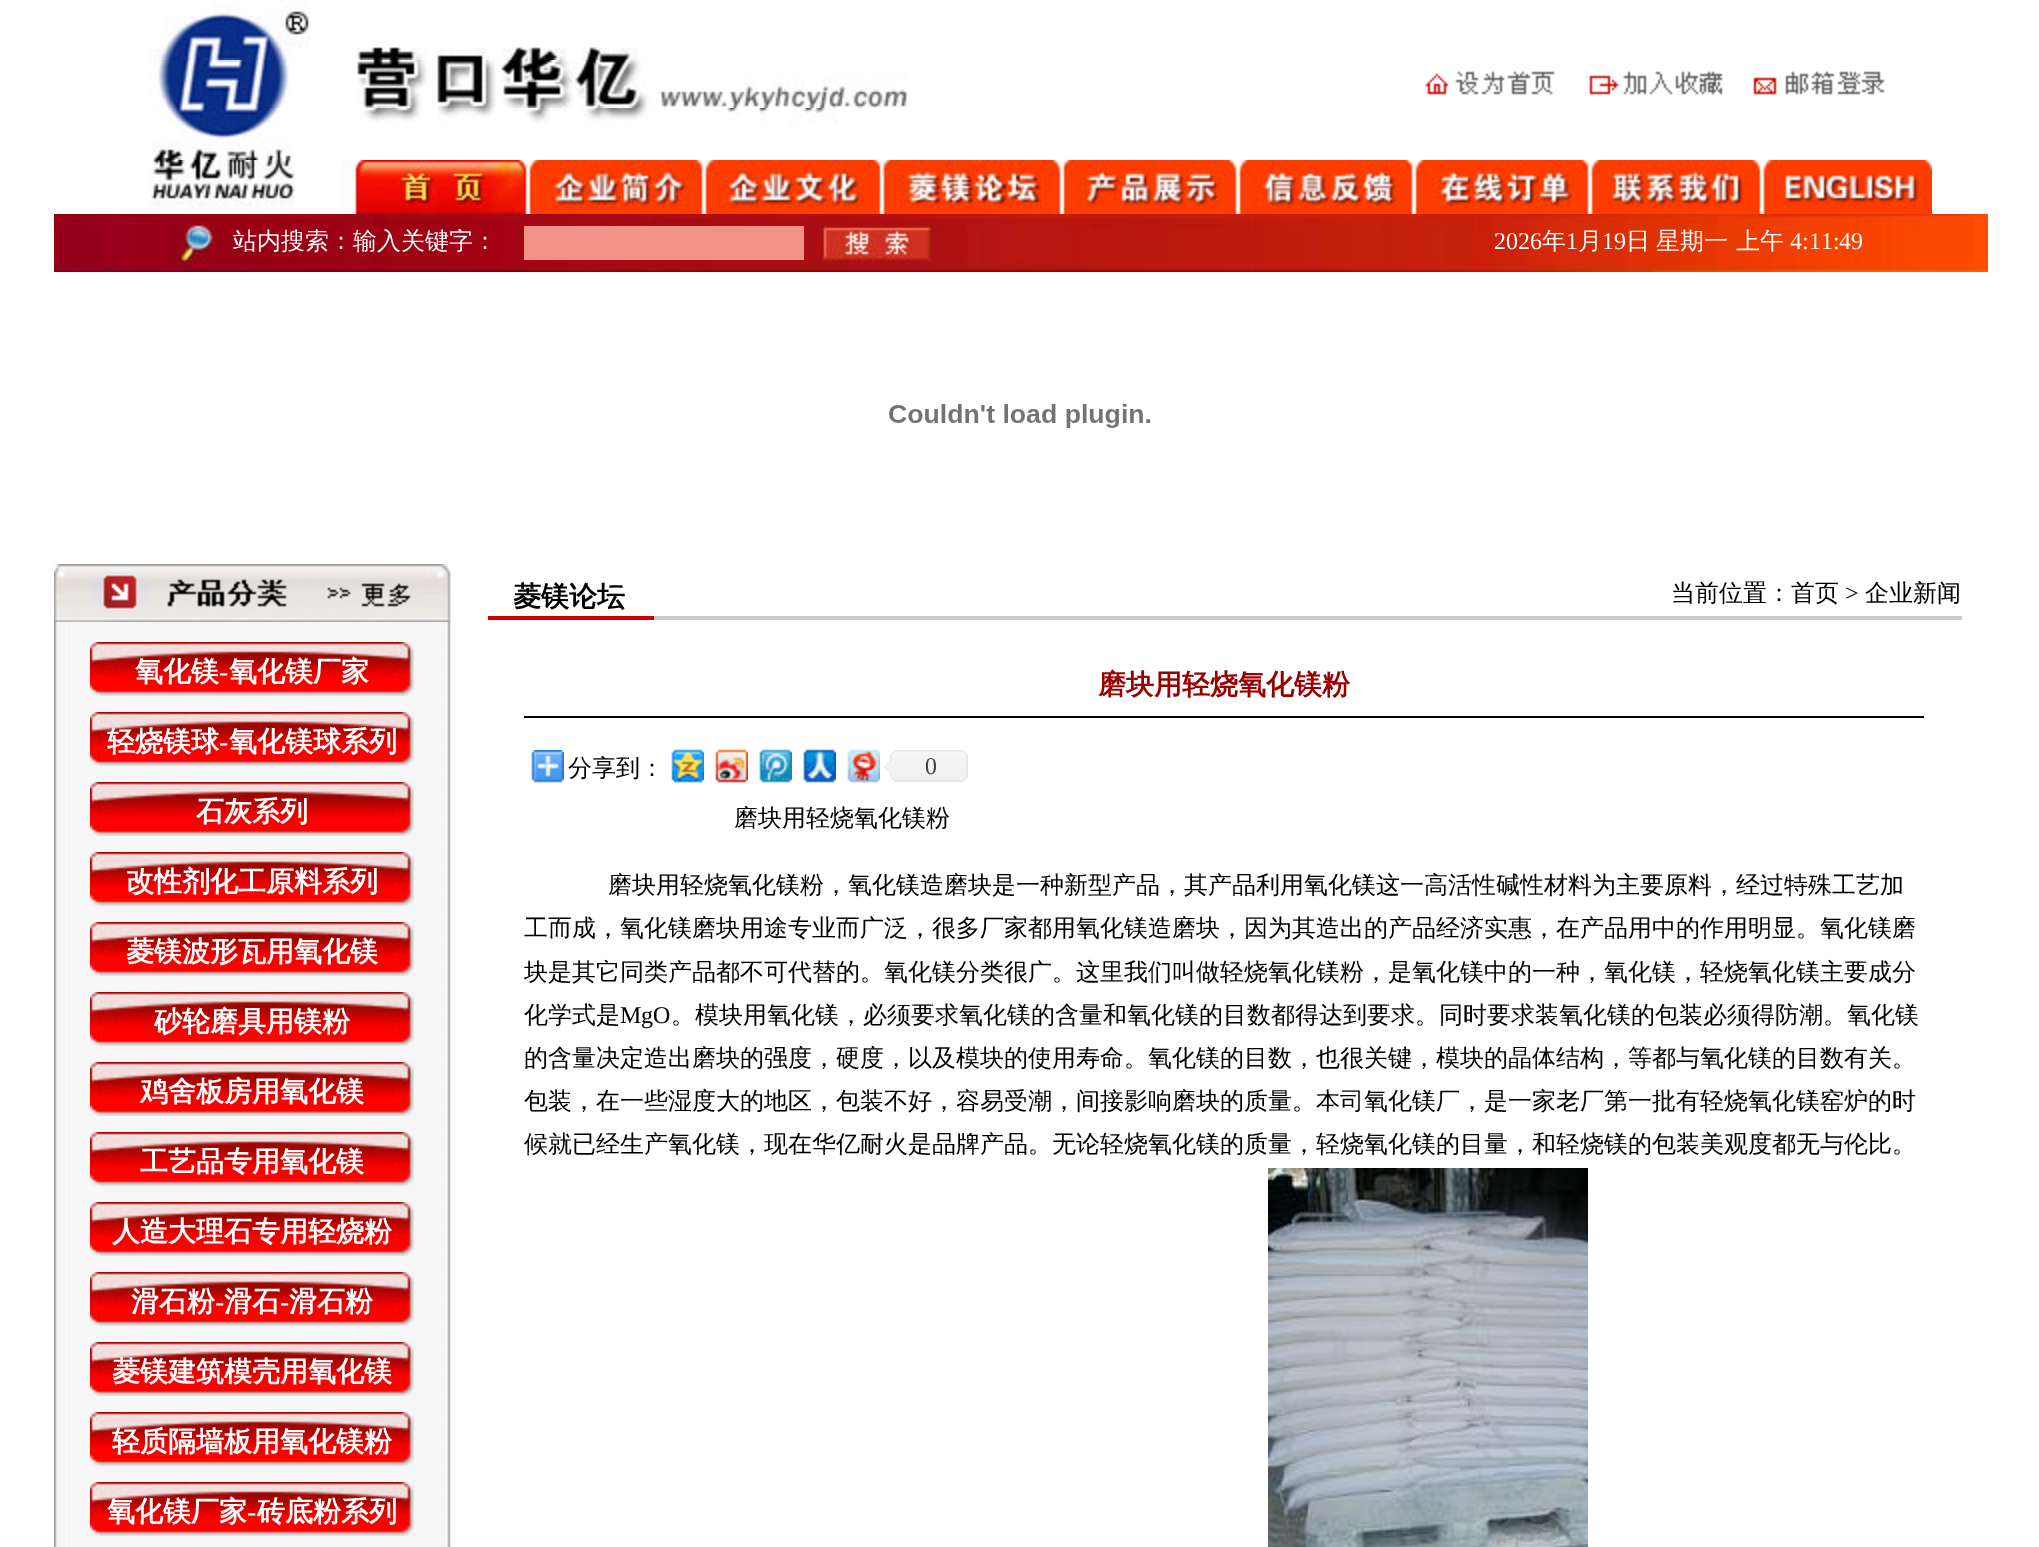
%!PS
<< /PageSize [2039 1547] >> setpagedevice
/rgb { dup -16 bitshift 255 div exch dup -8 bitshift 255 and 255 div exch 255 and 255 div setrgbcolor } def
/font { [ exch dup neg 0 0 3 -1 roll 0 0 ] selectfont } def
/text { moveto show } def
/picture { 5 dict begin { /h /w /y /x /name } { exch def } forall
  gsave x y translate w h scale
  w h 8 [w 0 0 h 0 0] name (r) file false 3 colorimage grestore end } def
0 1547 translate 1 -1 scale
4 setmiterlimit
/s1 { /WenQuanYiZenHei-Medium 24 font 16#FFFFFF rgb } def
/s2 { /LiberationSerif-Regular 24 font 16#FFFFFF rgb } def
/s3 { /WenQuanYiZenHei-Bold 28 font 16#FFFFFF rgb } def
/s4 { /LiberationSerif-Bold 28 font 16#FFFFFF rgb } def
/s5 { /WenQuanYiZenHei-Bold 28 font 16#000000 rgb } def
/s6 { /WenQuanYiZenHei-Medium 24 font 16#000000 rgb } def
/s7 { /LiberationSerif-Regular 24 font 16#000000 rgb } def
/s8 { /WenQuanYiZenHei-Bold 28 font 16#990000 rgb } def
/s9 { /LiberationSerif-Regular 24 font 16#454545 rgb } def
16#FFFFFF rgb
0 0 2039 1547 rectfill
(pic1.raw) 150 0 489 60 picture
(pic2.raw) 150 60 759 48 picture
(pic3.raw) 153 108 684 52 picture
(pic4.raw) 1425 71 130 24 picture
(pic5.raw) 1589 71 134 24 picture
(pic6.raw) 1753 71 132 24 picture
(pic7.raw) 150 160 204 54 picture
(pic8.raw) 354 160 174 54 picture
(pic9.raw) 528 160 176 54 picture
(pic10.raw) 704 160 178 54 picture
(pic11.raw) 882 160 180 54 picture
(pic12.raw) 1062 160 176 54 picture
(pic13.raw) 1238 160 176 54 picture
(pic14.raw) 1414 160 176 54 picture
(pic15.raw) 1590 160 172 54 picture
(pic16.raw) 1762 160 170 54 picture
(pic17.raw) 54 214 1934 58 picture
(pic18.raw) 178 222 36 42 picture
s1
(站内搜索：输入关键字：) 233 249 text
16#F29186 rgb
524 226 280 34 rectfill
(pic19.raw) 822 226 110 36 picture
s2
(2026) 1494 249 text
s1
(年) 1542 249 text
s2
(1) 1566 249 text
s1
(月) 1578 249 text
s2
(19) 1602 249 text
/WenQuanYiZenHei-Medium 24 font
1626 249 moveto -1 0 32 (日 星期一) widthshow
(上午) 1736 249 text
s2
(4:11:49) 1790 249 text
(pic20.raw) 889 404 262 24 picture
(pic21.raw) 54 622 397 925 picture
(pic22.raw) 54 564 397 58 picture
(pic23.raw) 90 642 324 54 picture
s3
(氧化镁) 135 681 text
s4
(-) 219 681 text
s3
(氧化镁厂家) 229 681 text
(pic23.raw) 90 712 324 54 picture
(轻烧镁球) 107 751 text
s4
(-) 219 751 text
s3
(氧化镁球系列) 229 751 text
(pic23.raw) 90 782 324 54 picture
(石灰系列) 196 821 text
(pic23.raw) 90 852 324 54 picture
(改性剂化工原料系列) 126 891 text
(pic23.raw) 90 922 324 54 picture
(菱镁波形瓦用氧化镁) 126 961 text
(pic23.raw) 90 992 324 54 picture
(砂轮磨具用镁粉) 154 1031 text
(pic23.raw) 90 1062 324 54 picture
(鸡舍板房用氧化镁) 140 1101 text
(pic23.raw) 90 1132 324 54 picture
(工艺品专用氧化镁) 140 1171 text
(pic23.raw) 90 1202 324 54 picture
(人造大理石专用轻烧粉) 112 1241 text
(pic23.raw) 90 1272 324 54 picture
(滑石粉) 131 1311 text
s4
(-) 215 1311 text
s3
(滑石) 224 1311 text
s4
(-) 280 1311 text
s3
(滑石粉) 289 1311 text
(pic23.raw) 90 1342 324 54 picture
(菱镁建筑模壳用氧化镁) 112 1381 text
(pic23.raw) 90 1412 324 54 picture
(轻质隔墙板用氧化镁粉) 112 1451 text
(pic23.raw) 90 1482 324 54 picture
(氧化镁厂家) 107 1521 text
s4
(-) 247 1521 text
s3
(砖底粉系列) 257 1521 text
s5
(菱镁论坛) 513 606 text
s6
(当前位置：首页) 1671 601 text
s7
(>) 1845 601 text
s6
(企业新闻) 1865 601 text
16#CC0000 rgb
488 616 166 4 rectfill
16#CCCCCC rgb
654 616 1308 4 rectfill
s8
(磨块用轻烧氧化镁粉) 1098 694 text
16#040304 rgb
524 716 1400 2 rectfill
(pic24.raw) 531 750 33 33 picture
s6
(分享到：) 568 776 text
(pic25.raw) 671 749 33 34 picture
(pic26.raw) 715 749 33 34 picture
(pic27.raw) 759 749 33 34 picture
(pic28.raw) 803 749 33 34 picture
(pic29.raw) 847 749 33 34 picture
(pic30.raw) 884 750 84 32 picture
s9
(0) 925 774 text
s6
(磨块用轻烧氧化镁粉) 734 826 text
(磨块用轻烧氧化镁粉，氧化镁造磨块是一种新型产品，其产品利用氧化镁这一高活性碱性材料为主要原料，经过特殊工艺加) 608 893 text
(工而成，氧化镁磨块用途专业而广泛，很多厂家都用氧化镁造磨块，因为其造出的产品经济实惠，在产品用中的作用明显。氧化镁磨) 524 936 text
(块是其它同类产品都不可代替的。氧化镁分类很广。这里我们叫做轻烧氧化镁粉，是氧化镁中的一种，氧化镁，轻烧氧化镁主要成分) 524 980 text
(化学式是) 524 1023 text
s7
(MgO) 620 1023 text
s6
(。模块用氧化镁，必须要求氧化镁的含量和氧化镁的目数都得达到要求。同时要求装氧化镁的包装必须得防潮。氧化镁) 671 1023 text
(的含量决定造出磨块的强度，硬度，以及模块的使用寿命。氧化镁的目数，也很关键，模块的晶体结构，等都与氧化镁的目数有关。) 524 1066 text
(包装，在一些湿度大的地区，包装不好，容易受潮，间接影响磨块的质量。本司氧化镁厂，是一家老厂第一批有轻烧氧化镁窑炉的时) 524 1109 text
(候就已经生产氧化镁，现在华亿耐火是品牌产品。无论轻烧氧化镁的质量，轻烧氧化镁的目量，和轻烧镁的包装美观度都无与伦比。) 524 1152 text
(pic31.raw) 1268 1168 320 379 picture
showpage
